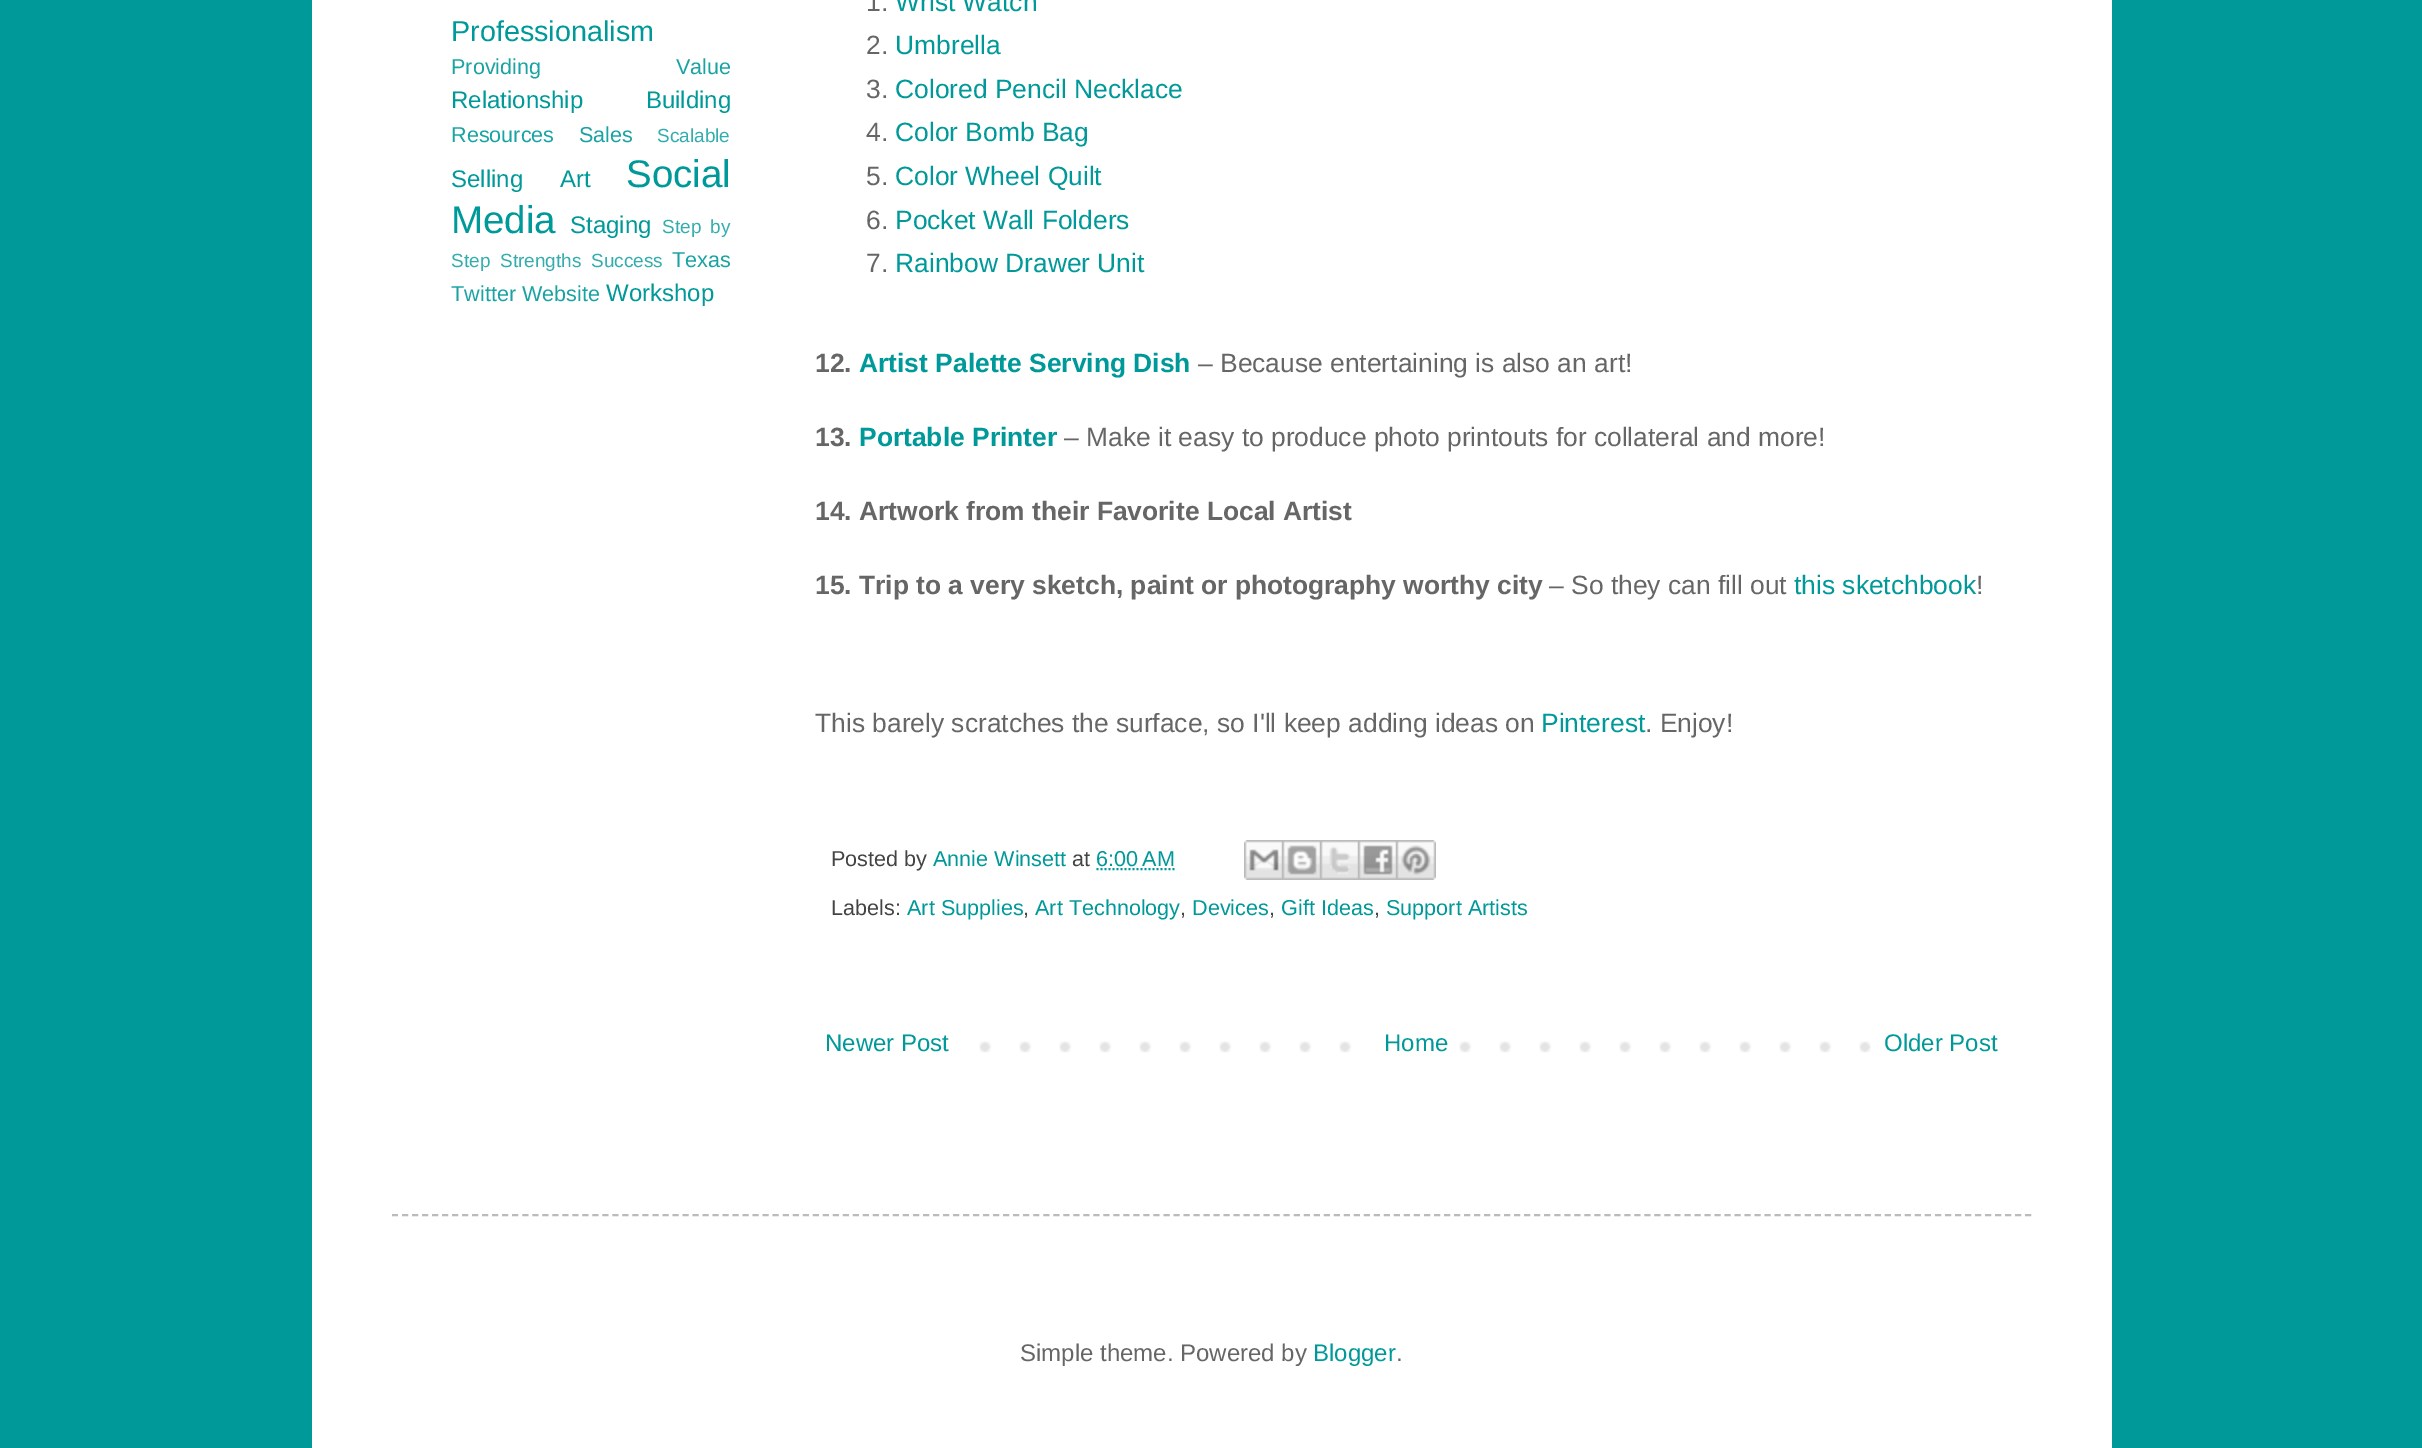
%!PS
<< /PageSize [2422 1448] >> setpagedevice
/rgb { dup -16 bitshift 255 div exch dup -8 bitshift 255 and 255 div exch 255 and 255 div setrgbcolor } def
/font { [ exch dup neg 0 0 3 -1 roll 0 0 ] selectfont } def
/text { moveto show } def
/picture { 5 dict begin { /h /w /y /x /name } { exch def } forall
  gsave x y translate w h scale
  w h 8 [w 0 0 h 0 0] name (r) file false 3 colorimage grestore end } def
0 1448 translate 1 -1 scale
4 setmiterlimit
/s1 { /LiberationSans-Regular 28.75 font 16#009999 rgb } def
/s2 { /LiberationSans-Regular 21.6 font 16#1AA3A3 rgb } def
/s3 { /LiberationSans-Regular 19 font 16#33ADAD rgb } def
/s4 { /LiberationSans-Regular 38.5 font 16#009999 rgb } def
/s5 { /LiberationSans-Regular 24 font 16#009999 rgb } def
/s6 { /LiberationSans-Regular 26.4 font 16#666666 rgb } def
/s7 { /LiberationSans-Regular 26.4 font 16#009999 rgb } def
/s8 { /LiberationSans-Bold 26.4 font 16#666666 rgb } def
/s9 { /LiberationSans-Bold 26.4 font 16#009999 rgb } def
/s10 { /LiberationSans-Regular 21.6 font 16#444444 rgb } def
/s11 { /LiberationSans-Regular 21.6 font 16#009999 rgb } def
/s12 { /LiberationSans-Regular 24 font 16#666666 rgb } def
16#009999 rgb
0 0 2422 1448 rectfill
16#FFFFFF rgb
312 0 1800 1448 rectfill
s1
(Professionalism) 451 41 text
/LiberationSans-Regular 21.6 font
16#1AA3A3 rgb
451 74 moveto 129 0 32 (Providing Value) widthshow
/LiberationSans-Regular 24 font
16#009999 rgb
451 108 moveto 56 0 32 (Relationship Building) widthshow
s2
(Resources) 451 142 text
(Sales) 579 142 text
s3
(Scalable) 657 142 text
/LiberationSans-Regular 24 font
16#009999 rgb
451 187 moveto 30 0 32 (Selling Art) widthshow
s4
(Social) 626 187 text
(Media) 451 233 text
s5
(Staging) 570 233 text
/LiberationSans-Regular 19 font
16#33ADAD rgb
662 233 moveto 4 0 32 (Step by) widthshow
(Step) 451 267 text
(Strengths) 500 267 text
(Success) 591 267 text
s2
(Texas) 672 267 text
(Twitter Website) 451 301 text
s5
(Workshop) 606 301 text
s6
(1.) 866 11 text
s7
(Wrist Watch) 895 11 text
s6
(2.) 866 54 text
s7
(Umbrella) 895 54 text
s6
(3.) 866 98 text
s7
(Colored Pencil Necklace) 895 98 text
s6
(4.) 866 141 text
s7
(Color Bomb Bag) 895 141 text
s6
(5.) 866 185 text
s7
(Color Wheel Quilt) 895 185 text
s6
(6.) 866 229 text
s7
(Pocket Wall Folders) 895 229 text
s6
(7.) 866 272 text
s7
(Rainbow Drawer Unit) 895 272 text
s8
(12.) 815 372 text
s9
(Artist Palette Serving Dish) 859 372 text
s6
(– Because entertaining is also an art!) 1198 372 text
s8
(13.) 815 446 text
s9
(Portable Printer) 859 446 text
s6
(– Make it easy to produce photo printouts for collateral and more!) 1064 446 text
s8
(14. Artwork from their Favorite Local Artist) 815 520 text
(15. Trip to a very sketch, paint or photography worthy city) 815 594 text
s6
(– So they can fill out) 1549 594 text
s7
(this sketchbook) 1794 594 text
s6
(!) 1976 594 text
(This barely scratches the surface, so I'll keep adding ideas on) 815 732 text
s7
(Pinterest) 1541 732 text
s6
(. Enjoy!) 1645 732 text
s10
(Posted by) 831 866 text
s11
(Annie Winsett) 933 866 text
s10
(at) 1072 866 text
s11
(6:00 AM) 1096 866 text
2 setlinewidth
[2 2] 0 setdash
1096.5 869 moveto 1175 869 lineto stroke
(pic1.raw) 1244 840 38 40 picture
(pic2.raw) 1282 840 38 40 picture
(pic3.raw) 1320 840 38 40 picture
(pic4.raw) 1358 840 38 40 picture
(pic5.raw) 1396 840 40 40 picture
s10
(Labels:) 831 915 text
s11
(Art Supplies) 907 915 text
s10
(,) 1023 915 text
s11
(Art Technology) 1035 915 text
s10
(,) 1180 915 text
s11
(Devices) 1192 915 text
s10
(,) 1269 915 text
s11
(Gift Ideas) 1281 915 text
s10
(,) 1374 915 text
s11
(Support Artists) 1386 915 text
(pic6.raw) 979 1041 892 12 picture
s5
(Newer Post) 825 1051 text
16#FFFFFF rgb
1379 1041 53 12 rectfill
s5
(Home) 1384 1051 text
(Older Post) 1884 1051 text
16#BBBBBB rgb
[6 4.02] 0 setdash
392 1215 moveto 2032 1215 lineto stroke
s12
(Simple theme. Powered by) 1020 1361 text
s5
(Blogger) 1313 1361 text
s12
(.) 1396 1361 text
showpage
